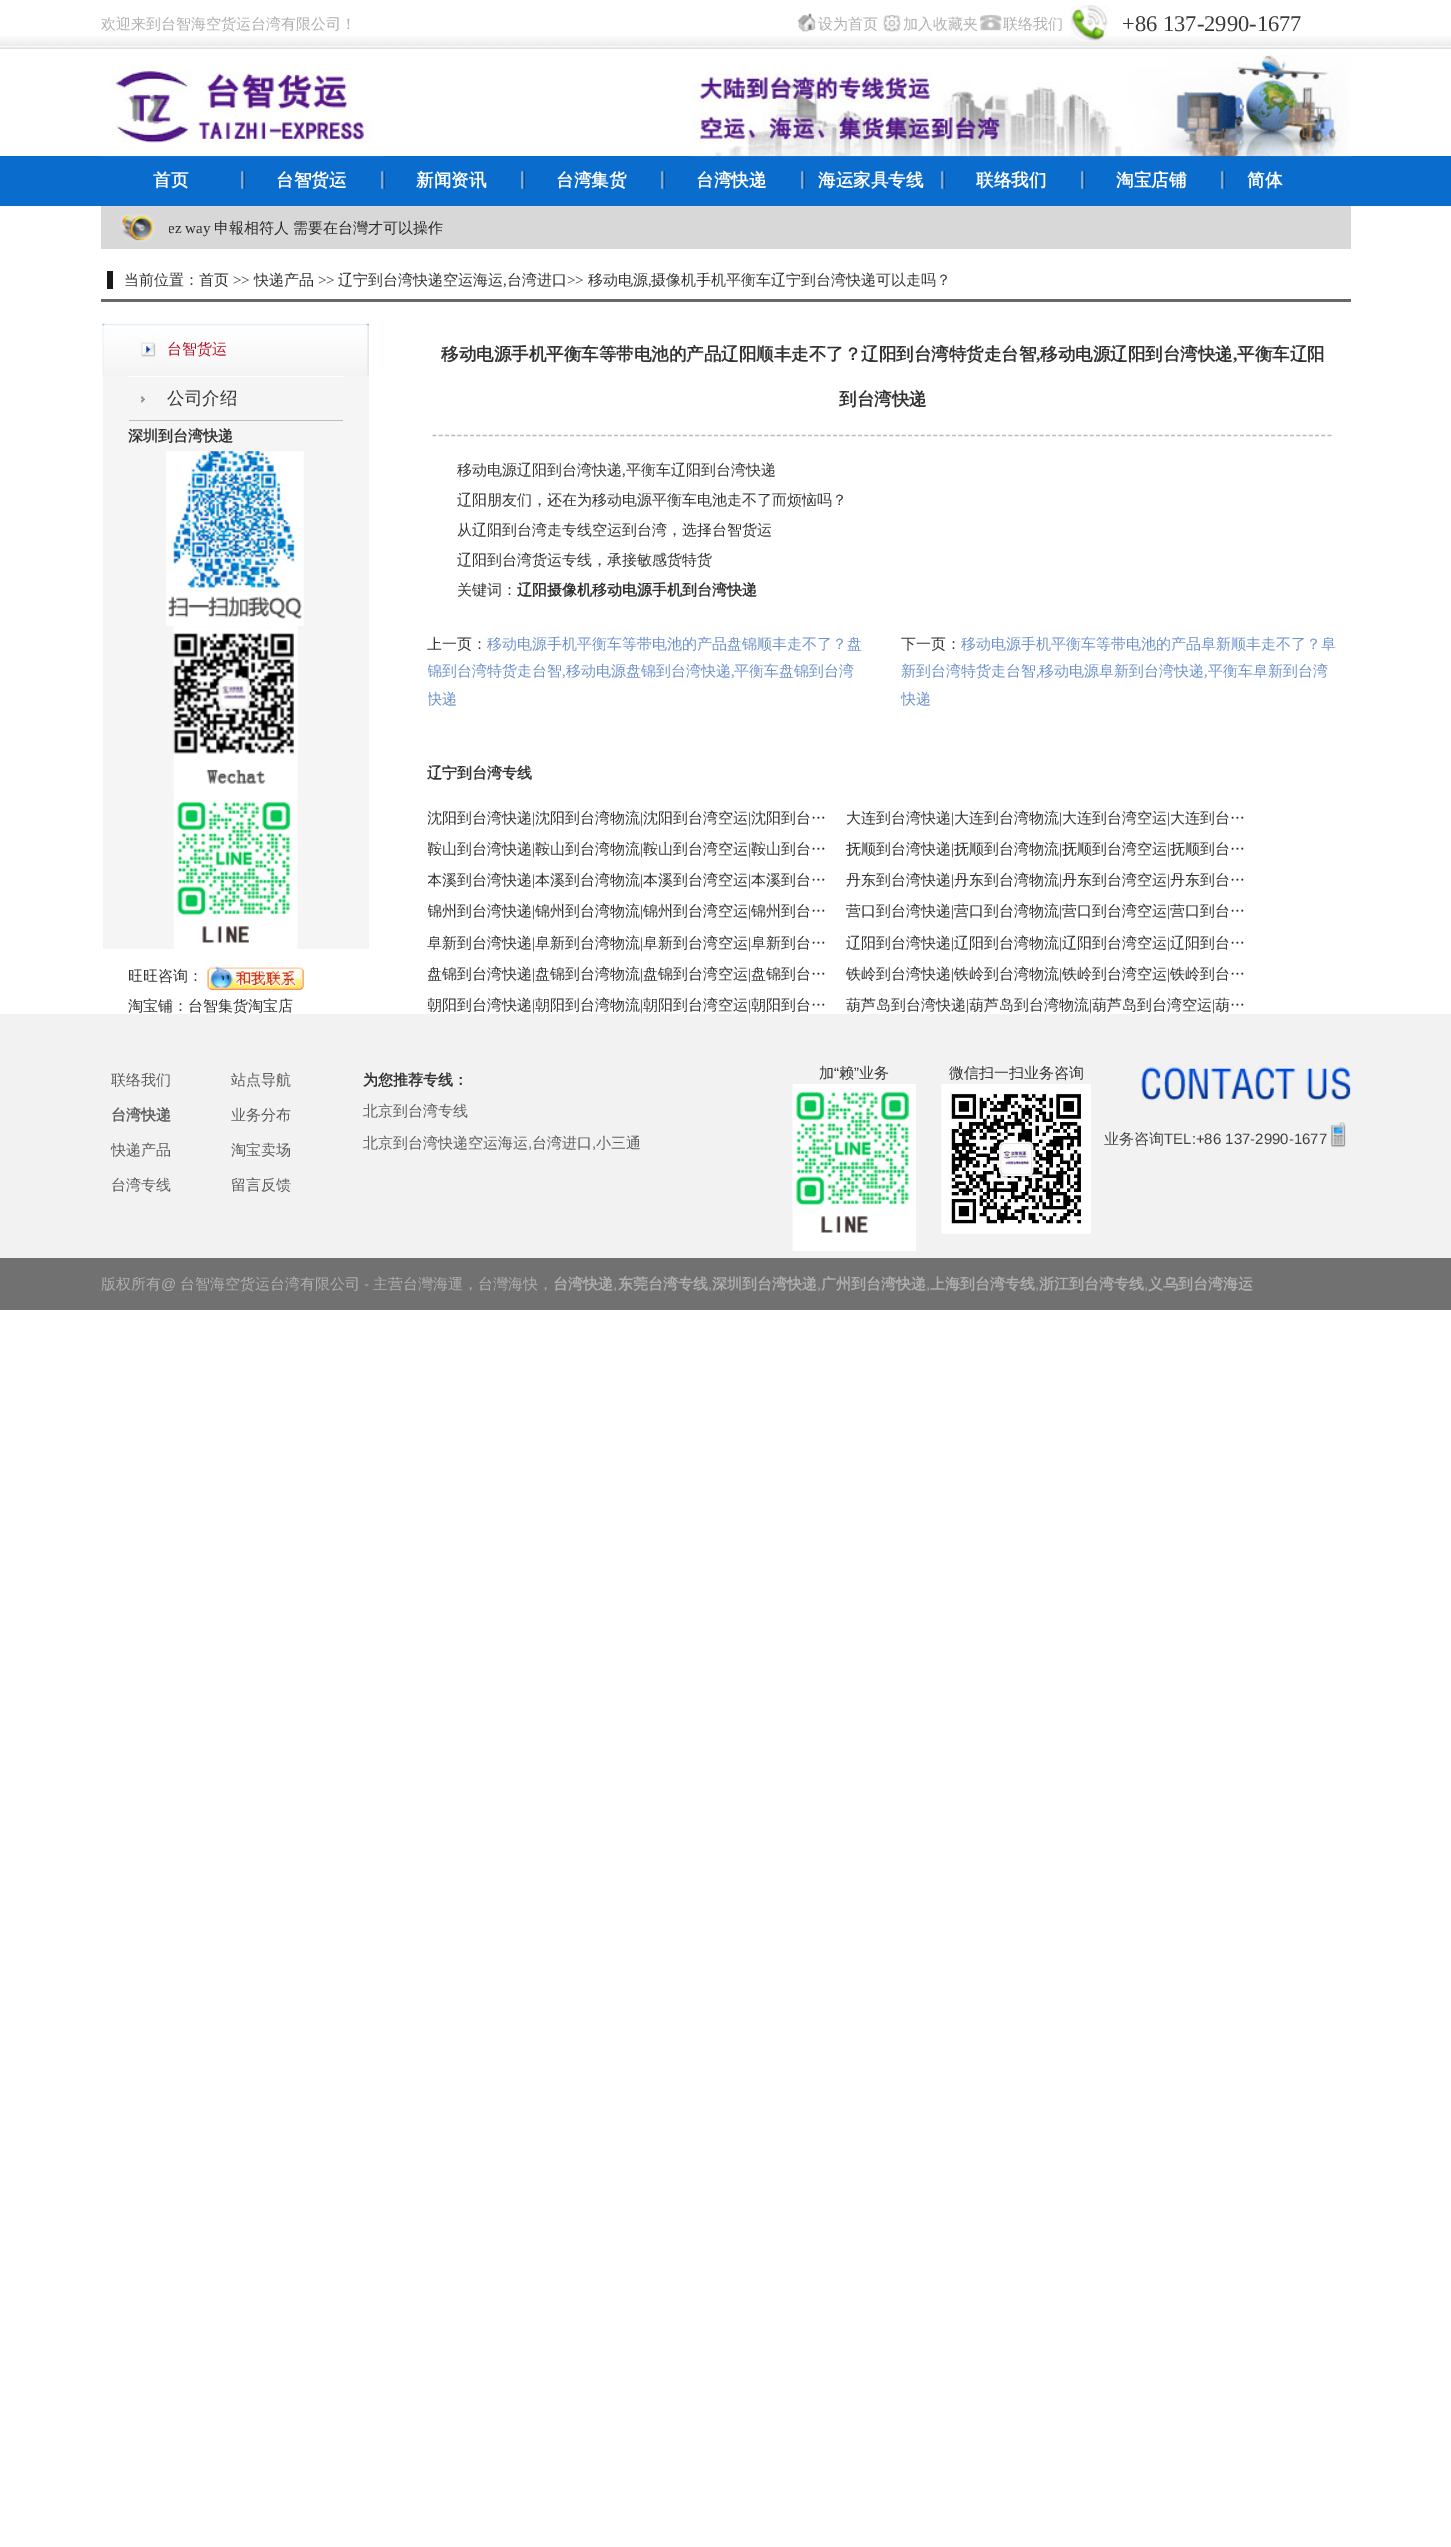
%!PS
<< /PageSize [1451 2547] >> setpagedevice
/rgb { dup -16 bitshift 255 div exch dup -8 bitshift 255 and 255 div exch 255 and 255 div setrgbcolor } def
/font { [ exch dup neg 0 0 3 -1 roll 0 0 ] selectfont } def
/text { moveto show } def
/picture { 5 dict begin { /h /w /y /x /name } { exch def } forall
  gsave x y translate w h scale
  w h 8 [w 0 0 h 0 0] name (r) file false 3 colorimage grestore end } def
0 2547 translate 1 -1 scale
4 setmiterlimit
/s1 { /WenQuanYiZenHei-Medium 15 font 16#B0B0B0 rgb } def
/s2 { /LiberationSerif-Regular 22.5 font 16#3A3A3A rgb } def
/s3 { /WenQuanYiZenHei-Bold 17.5 font 16#FFFFFF rgb } def
/s4 { /LiberationSerif-Regular 15 font 16#2A2A2A rgb } def
/s5 { /WenQuanYiZenHei-Medium 15 font 16#2A2A2A rgb } def
/s6 { /WenQuanYiZenHei-Medium 15 font 16#333333 rgb } def
/s7 { /LiberationSerif-Regular 15 font 16#333333 rgb } def
/s8 { /WenQuanYiZenHei-Medium 15 font 16#B81228 rgb } def
/s9 { /WenQuanYiZenHei-Medium 17.5 font 16#333333 rgb } def
/s10 { /WenQuanYiZenHei-Bold 15 font 16#333333 rgb } def
/s11 { /WenQuanYiZenHei-Bold 17.5 font 16#333333 rgb } def
/s12 { /LiberationSerif-Bold 17.5 font 16#333333 rgb } def
/s13 { /WenQuanYiZenHei-Medium 15 font 16#6E92CC rgb } def
/s14 { /LiberationSerif-Regular 15 font 16#6E92CC rgb } def
/s15 { /WenQuanYiZenHei-Medium 15 font 16#5D5D5D rgb } def
/s16 { /WenQuanYiZenHei-Bold 15 font 16#5D5D5D rgb } def
/s17 { /LiberationSans-Regular 15 font 16#5D5D5D rgb } def
/s18 { /LiberationSans-Regular 15 font 16#333333 rgb } def
/s19 { /WenQuanYiZenHei-Medium 15 font 16#424242 rgb } def
/s20 { /LiberationSans-Regular 15 font 16#424242 rgb } def
/s21 { /LiberationSans-Regular 15 font 16#B0B0B0 rgb } def
/s22 { /WenQuanYiZenHei-Bold 15 font 16#B0B0B0 rgb } def
16#FFFFFF rgb
0 0 1451 2547 rectfill
(pic1.raw) 0 36 1451 13 picture
s1
(欢迎来到台智海空货运台湾有限公司！) 101 29 text
(pic2.raw) 797 13 19 19 picture
(设为首页) 818 29 text
(pic3.raw) 883 14 18 18 picture
(加入收藏夹) 903 29 text
(pic4.raw) 980 14 22 17 picture
(联络我们) 1003 29 text
(pic5.raw) 1070 5 38 36 picture
s2
(+86 137-2990-1677) 1122 31 text
16#0A6CCD rgb
0 156 1451 50 rectfill
(pic6.raw) 101 63 283 94 picture
(pic7.raw) 692 53 659 104 picture
s3
(首页) 153 186 text
(pic8.raw) 241 171 4 18 picture
(台智货运) 276 186 text
(pic8.raw) 381 171 4 18 picture
(新闻资讯) 416 186 text
(pic8.raw) 521 171 4 18 picture
(台湾集货) 556 186 text
(pic8.raw) 661 171 4 18 picture
(台湾快递) 696 186 text
(pic8.raw) 801 171 4 18 picture
(海运家具专线) 818 186 text
(pic8.raw) 941 171 4 18 picture
(联络我们) 976 186 text
(pic8.raw) 1081 171 4 18 picture
(淘宝店铺) 1116 186 text
(pic8.raw) 1221 171 4 18 picture
(简体) 1247 186 text
16#D8D8D8 rgb
101 206 1250 43 rectfill
(pic9.raw) 120 214 35 28 picture
gsave
169 206 1175 43 rectclip
s4
(ez way) 168 233 text
grestore
s5
(申報相符人) 214 233 text
(需要在台灣才可以操作) 293 233 text
16#666666 rgb
101 299 1250 3 rectfill
s6
(当前位置：首页) 124 285 text
16#191919 rgb
107 271 6 18 rectfill
s7
(>>) 233 285 text
s6
(快递产品) 254 285 text
s7
(>>) 318 285 text
s6
(辽宁到台湾快递空运海运) 338 285 text
(台湾进口) 507 285 text
s7
(>>) 567 285 text
s6
(移动电源) 588 285 text
(摄像机手机平衡车辽宁到台湾快递可以走吗？) 651 285 text
s7
(,) 503 285 text
(,) 648 285 text
16#F5F5F5 rgb
103 324 266 625 rectfill
(pic10.raw) 102 323 267 54 picture
s8
(台智货运) 167 354 text
16#FFFFFF rgb
129 376 214 1 rectfill
16#BCBCBC rgb
129 420 214 1 rectfill
(pic11.raw) 141 396 4 7 picture
s9
(公司介绍) 167 404 text
s10
(深圳到台湾快递) 128 441 text
(pic12.raw) 166 451 138 175 picture
(pic13.raw) 173 626 125 168 picture
(pic14.raw) 174 794 124 155 picture
s6
(旺旺咨询：) 128 981 text
(pic15.raw) 207 966 97 24 picture
(淘宝铺：台智集货淘宝店) 128 1011 text
16#BCBCBC rgb
1.2 setlinewidth
[3.75 2.51] 0 setdash
432.5 435.5 moveto 1332.5 435.5 lineto stroke
s11
(移动电源手机平衡车等带电池的产品辽阳顺丰走不了？辽阳到台湾特货走台智) 441 360 text
s12
(,) 1036 360 text
s11
(移动电源辽阳到台湾快递) 1040 360 text
s12
(,) 1233 360 text
s11
(平衡车辽阳) 1237 360 text
(到台湾快递) 839 405 text
s6
(移动电源辽阳到台湾快递) 457 475 text
s7
(,) 622 475 text
s6
(平衡车辽阳到台湾快递) 626 475 text
(辽阳朋友们，还在为移动电源平衡车电池走不了而烦恼吗？) 457 505 text
(从辽阳到台湾走专线空运到台湾，选择台智货运) 457 535 text
(辽阳到台湾货运专线，承接敏感货特货) 457 565 text
(关键词：) 457 595 text
s10
(辽阳摄像机移动电源手机到台湾快递) 517 595 text
s6
(上一页：) 427 649 text
s13
(移动电源手机平衡车等带电池的产品盘锦顺丰走不了？盘) 487 649 text
gsave
428 630 437 83 rectclip
(锦到台湾特货走台智) 427 676 text
grestore
s14
(,) 562 676 text
s13
(移动电源盘锦到台湾快递) 566 676 text
s14
(,) 731 676 text
s13
(平衡车盘锦到台湾) 734 676 text
gsave
428 630 437 83 rectclip
(快递) 427 704 text
grestore
s6
(下一页：) 901 649 text
s13
(移动电源手机平衡车等带电池的产品阜新顺丰走不了？阜) 961 649 text
(新到台湾特货走台智) 901 676 text
s14
(,) 1036 676 text
s13
(移动电源阜新到台湾快递) 1039 676 text
s14
(,) 1204 676 text
s13
(平衡车阜新到台湾) 1208 676 text
gsave
901 630 438 83 rectclip
(快递) 901 704 text
grestore
s10
(辽宁到台湾专线) 427 778 text
gsave
428 795 400 31 rectclip
s6
(沈阳到台湾快递) 427 823 text
grestore
s7
(|) 532 823 text
s6
(沈阳到台湾物流) 535 823 text
s7
(|) 640 823 text
s6
(沈阳到台湾空运) 643 823 text
s7
(|) 748 823 text
s6
(沈阳到台…) 751 823 text
(大连到台湾快递) 846 823 text
s7
(|) 951 823 text
s6
(大连到台湾物流) 954 823 text
s7
(|) 1059 823 text
s6
(大连到台湾空运) 1062 823 text
s7
(|) 1167 823 text
s6
(大连到台…) 1170 823 text
gsave
428 826 400 32 rectclip
(鞍山到台湾快递) 427 854 text
grestore
s7
(|) 532 854 text
s6
(鞍山到台湾物流) 535 854 text
s7
(|) 640 854 text
s6
(鞍山到台湾空运) 643 854 text
s7
(|) 748 854 text
s6
(鞍山到台…) 751 854 text
gsave
846 826 400 32 rectclip
(抚顺到台湾快递) 846 854 text
grestore
s7
(|) 951 854 text
s6
(抚顺到台湾物流) 954 854 text
s7
(|) 1059 854 text
s6
(抚顺到台湾空运) 1062 854 text
s7
(|) 1167 854 text
s6
(抚顺到台…) 1170 854 text
gsave
428 858 400 31 rectclip
(本溪到台湾快递) 427 885 text
grestore
s7
(|) 532 885 text
s6
(本溪到台湾物流) 535 885 text
s7
(|) 640 885 text
s6
(本溪到台湾空运) 643 885 text
s7
(|) 748 885 text
s6
(本溪到台…) 751 885 text
(丹东到台湾快递) 846 885 text
s7
(|) 951 885 text
s6
(丹东到台湾物流) 954 885 text
s7
(|) 1059 885 text
s6
(丹东到台湾空运) 1062 885 text
s7
(|) 1167 885 text
s6
(丹东到台…) 1170 885 text
gsave
428 889 400 31 rectclip
(锦州到台湾快递) 427 916 text
grestore
s7
(|) 532 916 text
s6
(锦州到台湾物流) 535 916 text
s7
(|) 640 916 text
s6
(锦州到台湾空运) 643 916 text
s7
(|) 748 916 text
s6
(锦州到台…) 751 916 text
(营口到台湾快递) 846 916 text
s7
(|) 951 916 text
s6
(营口到台湾物流) 954 916 text
s7
(|) 1059 916 text
s6
(营口到台湾空运) 1062 916 text
s7
(|) 1167 916 text
s6
(营口到台…) 1170 916 text
(阜新到台湾快递) 427 948 text
s7
(|) 532 948 text
s6
(阜新到台湾物流) 535 948 text
s7
(|) 640 948 text
s6
(阜新到台湾空运) 643 948 text
s7
(|) 748 948 text
s6
(阜新到台…) 751 948 text
(辽阳到台湾快递) 846 948 text
s7
(|) 951 948 text
s6
(辽阳到台湾物流) 954 948 text
s7
(|) 1059 948 text
s6
(辽阳到台湾空运) 1062 948 text
s7
(|) 1167 948 text
s6
(辽阳到台…) 1170 948 text
gsave
428 951 400 32 rectclip
(盘锦到台湾快递) 427 979 text
grestore
s7
(|) 532 979 text
s6
(盘锦到台湾物流) 535 979 text
s7
(|) 640 979 text
s6
(盘锦到台湾空运) 643 979 text
s7
(|) 748 979 text
s6
(盘锦到台…) 751 979 text
(铁岭到台湾快递) 846 979 text
s7
(|) 951 979 text
s6
(铁岭到台湾物流) 954 979 text
s7
(|) 1059 979 text
s6
(铁岭到台湾空运) 1062 979 text
s7
(|) 1167 979 text
s6
(铁岭到台…) 1170 979 text
gsave
428 983 400 31 rectclip
(朝阳到台湾快递) 427 1010 text
grestore
s7
(|) 532 1010 text
s6
(朝阳到台湾物流) 535 1010 text
s7
(|) 640 1010 text
s6
(朝阳到台湾空运) 643 1010 text
s7
(|) 748 1010 text
s6
(朝阳到台…) 751 1010 text
(葫芦岛到台湾快递) 846 1010 text
s7
(|) 966 1010 text
s6
(葫芦岛到台湾物流) 969 1010 text
s7
(|) 1089 1010 text
s6
(葫芦岛到台湾空运) 1092 1010 text
s7
(|) 1212 1010 text
s6
(葫…) 1215 1010 text
16#F2F2F2 rgb
0 1014 1451 244 rectfill
s15
(联络我们) 111 1085 text
s16
(台湾快递) 111 1120 text
s15
(快递产品) 111 1155 text
(台湾专线) 111 1190 text
(站点导航) 231 1085 text
(业务分布) 231 1120 text
(淘宝卖场) 231 1155 text
(留言反馈) 231 1190 text
s10
(为您推荐专线：) 363 1085 text
s15
(北京到台湾专线) 363 1116 text
(北京到台湾快递空运海运) 363 1148 text
s17
(,) 528 1148 text
s15
(台湾进口) 532 1148 text
s17
(,) 592 1148 text
s15
(小三通) 596 1148 text
s6
(加) 819 1078 text
s18
(“) 834 1078 text
s6
(赖) 839 1078 text
s18
(”) 854 1078 text
s6
(业务) 859 1078 text
(pic16.raw) 792 1084 124 167 picture
(微信扫一扫业务咨询) 949 1078 text
(pic17.raw) 941 1084 150 150 picture
(pic18.raw) 1141 1064 210 37 picture
s19
(业务咨询) 1104 1144 text
s20
(TEL:+86 137-2990-1677) 1164 1144 text
(pic19.raw) 1331 1122 15 26 picture
16#717171 rgb
0 1258 1451 52 rectfill
s1
(版权所有) 101 1289 text
s21
(@) 161 1289 text
s1
(台智海空货运台湾有限公司) 180 1289 text
s21
(-) 364 1289 text
s1
(主营台灣海運，台灣海快，) 373 1289 text
s22
(台湾快递) 553 1289 text
(东莞台湾专线) 618 1289 text
(深圳到台湾快递) 712 1289 text
(广州到台湾快递) 821 1289 text
(上海到台湾专线) 930 1289 text
(浙江到台湾专线) 1039 1289 text
(义乌到台湾海运) 1148 1289 text
s21
(,) 613 1289 text
(,) 708 1289 text
(,) 817 1289 text
(,) 926 1289 text
(,) 1035 1289 text
(,) 1144 1289 text
showpage
